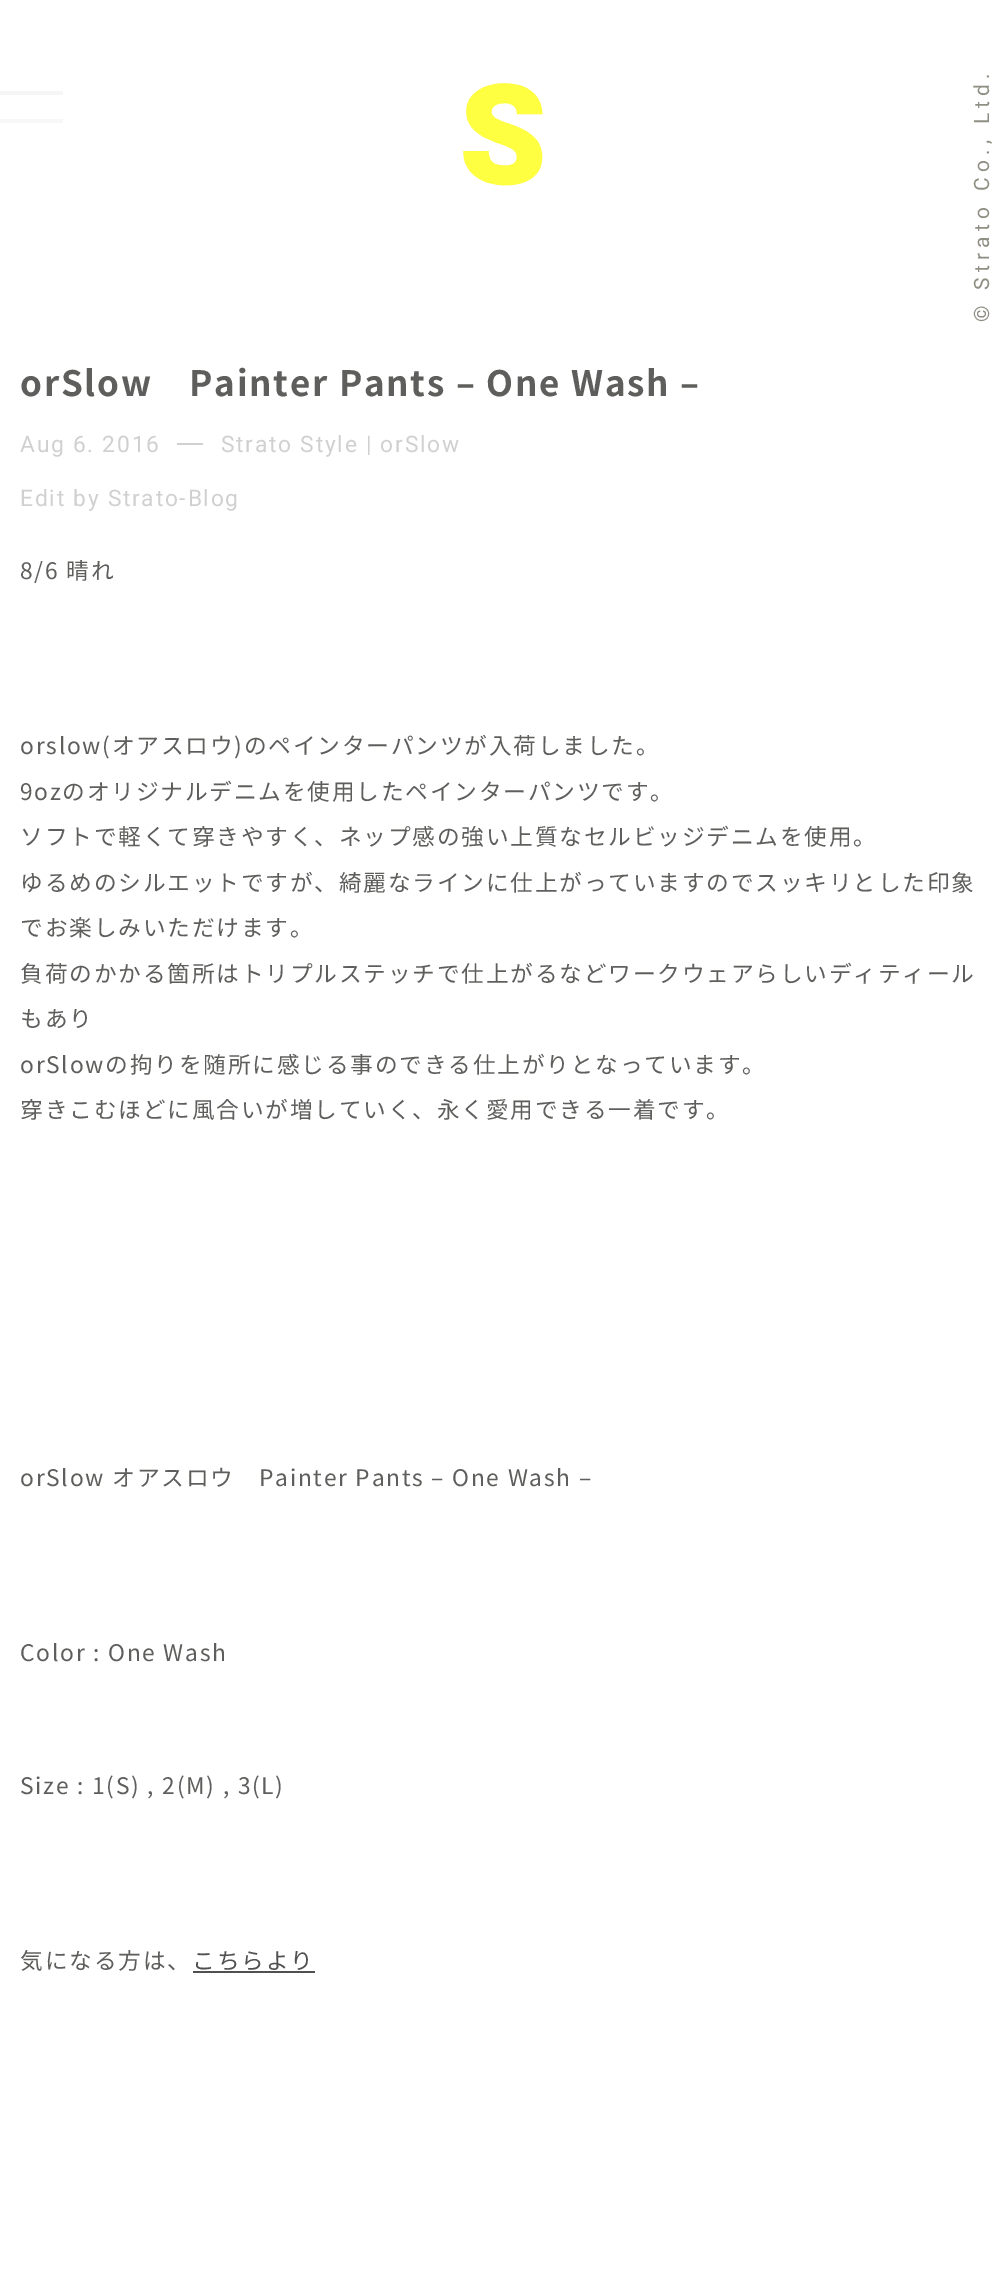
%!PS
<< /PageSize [1007 2280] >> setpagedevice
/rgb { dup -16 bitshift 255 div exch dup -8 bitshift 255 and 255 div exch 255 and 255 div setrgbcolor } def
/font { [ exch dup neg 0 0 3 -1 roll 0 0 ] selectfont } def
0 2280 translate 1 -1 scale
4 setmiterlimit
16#FFFFFF rgb
0 0 1007 2280 rectfill
16#F6F6F6 rgb
0 91 63 4 rectfill
16#F8F8F8 rgb
0 119 63 4 rectfill
/Heebo-Black 140 font
16#FFFF42 rgb
459 184 moveto 1.75 0 (S) ashow
/Roboto-Regular 21 font
16#8F8E83 rgb
gsave 989 322 translate -90 rotate 0 0 moveto 5.25 0 (© Strato Co., Ltd.) ashow grestore
/NotoSansJP-Bold 35 font
16#5E5E5C rgb
20 396 moveto 1.75 0 (orSlow　Painter Pants – One Wash –) ashow
/Roboto-Regular 22.75 font
16#D0D0D0 rgb
20 452 moveto 1.75 0 (Aug 6. 2016) ashow
177 443 26 2 rectfill
221 452 moveto 1.75 0 (Strato Style | orSlow) ashow
20 506 moveto 1.75 0 (Edit by Strato-Blog) ashow
/NotoSansJP-Regular 22.75 font
16#5E5E5C rgb
20 579 moveto 1.75 0 (8/6 晴れ) ashow
20 754 moveto 1.75 0 (orslow\(オアスロウ\)のペインターパンツが入荷しました。) ashow
20 800 moveto 1.75 0 (9ozのオリジナルデニムを使用したペインターパンツです。) ashow
20 845 moveto 1.75 0 (ソフトで軽くて穿きやすく、ネップ感の強い上質なセルビッジデニムを使用。) ashow
20 891 moveto 1.75 0 (ゆるめのシルエットですが、綺麗なラインに仕上がっていますのでスッキリとした印象) ashow
20 936 moveto 1.75 0 (でお楽しみいただけます。) ashow
20 982 moveto 1.75 0 (負荷のかかる箇所はトリプルステッチで仕上がるなどワークウェアらしいディティール) ashow
20 1027 moveto 1.75 0 (もあり) ashow
20 1073 moveto 1.75 0 (orSlowの拘りを随所に感じる事のできる仕上がりとなっています。) ashow
20 1118 moveto 1.75 0 (穿きこむほどに風合いが増していく、永く愛用できる一着です。) ashow
20 1486 moveto 1.75 0 (orSlow オアスロウ　Painter Pants – One Wash –) ashow
20 1661 moveto 1.75 0 (Color : One Wash) ashow
20 1794 moveto 1.75 0 (Size : 1\(S\) , 2\(M\) , 3\(L\)) ashow
20 1969 moveto 1.75 0 (気になる方は、) ashow
16#505050 rgb
192 1969 moveto 1.75 0 (こちらより) ashow
193 1971 122 2 rectfill
showpage
